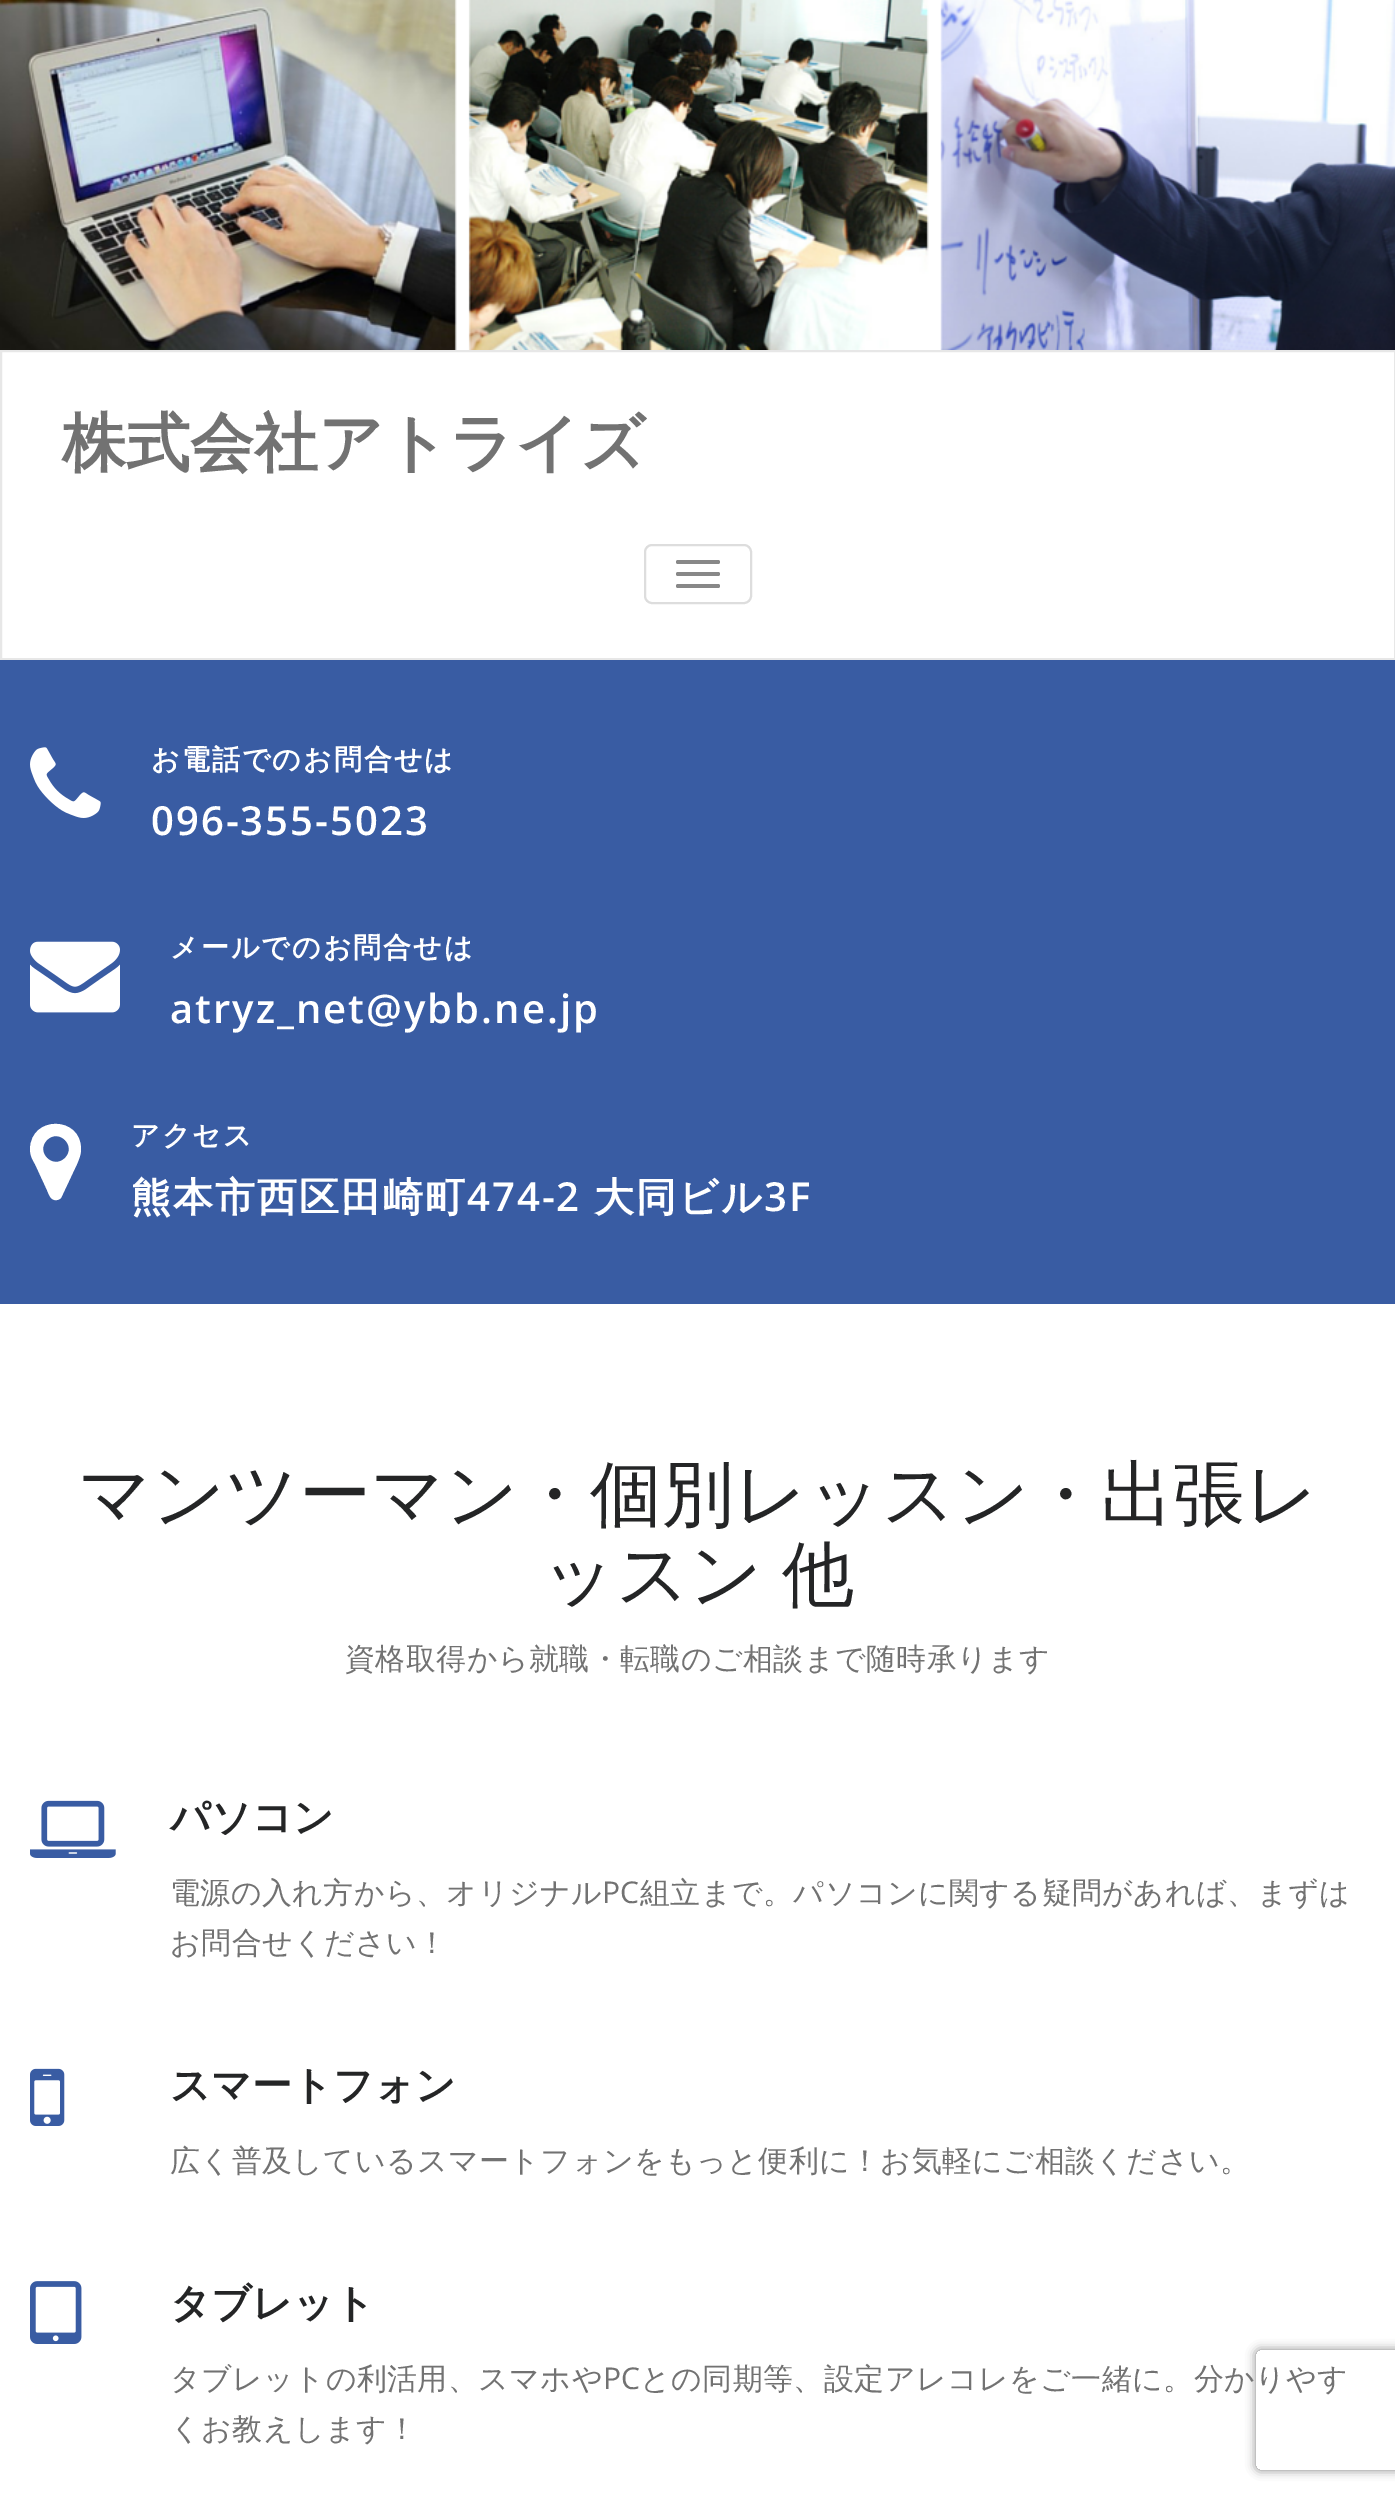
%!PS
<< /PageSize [1395 2497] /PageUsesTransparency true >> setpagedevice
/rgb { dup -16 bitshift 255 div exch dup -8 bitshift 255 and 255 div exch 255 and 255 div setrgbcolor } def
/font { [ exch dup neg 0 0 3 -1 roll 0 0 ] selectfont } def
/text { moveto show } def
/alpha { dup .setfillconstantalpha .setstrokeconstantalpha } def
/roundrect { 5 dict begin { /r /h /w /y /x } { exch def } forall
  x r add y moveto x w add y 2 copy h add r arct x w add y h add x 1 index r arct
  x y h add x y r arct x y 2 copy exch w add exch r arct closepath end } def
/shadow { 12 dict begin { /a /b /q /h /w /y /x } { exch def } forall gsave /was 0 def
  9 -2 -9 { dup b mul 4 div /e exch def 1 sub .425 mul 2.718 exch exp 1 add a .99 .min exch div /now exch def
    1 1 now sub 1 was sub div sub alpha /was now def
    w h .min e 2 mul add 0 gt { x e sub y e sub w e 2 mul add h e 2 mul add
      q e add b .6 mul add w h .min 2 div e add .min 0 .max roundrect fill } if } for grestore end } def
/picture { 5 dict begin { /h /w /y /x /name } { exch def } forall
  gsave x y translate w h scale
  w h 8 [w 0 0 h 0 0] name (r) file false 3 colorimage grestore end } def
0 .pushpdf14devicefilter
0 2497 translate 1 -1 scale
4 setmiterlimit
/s1 { /WenQuanYiZenHei-Bold 64 font 16#727272 rgb } def
/s2 { /WenQuanYiZenHei-Medium 72 font 16#242526 rgb } def
/s3 { /WenQuanYiZenHei-Bold 40 font 16#242526 rgb } def
16#FFFFFF rgb
0 0 1395 2497 rectfill
(pic1.raw) 0 0 1395 350 picture
16#E7E7E7 rgb
2 setlinewidth
1 351 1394 308 rectstroke
s1
(株式会社アトライズ) 62 465 text
16#DDDDDD rgb
645 545 106 58 7 roundrect stroke
16#888888 rgb
676 560 44 4 2 roundrect fill
676 572 44 4 2 roundrect fill
676 584 44 4 2 roundrect fill
16#395CA3 rgb
0 660 1395 644 rectfill
(pic2.raw) 30 747 71 71 picture
/WenQuanYiZenHei-Bold 28 font
16#FFFFFF rgb
151 769 moveto 2 0 (お電話でのお問合せは) ashow
/OpenSans-SemiBold 40 font
151 835 moveto 2 0 (096-355-5023) ashow
(pic3.raw) 30 941 90 72 picture
/WenQuanYiZenHei-Bold 28 font
170 957 moveto 2 0 (メールでのお問合せは) ashow
/OpenSans-SemiBold 40 font
170 1023 moveto 2 0 (atryz_net@ybb.ne.jp) ashow
65 1158 moveto 77 1146 59 1128 47 1140 curveto 35 1152 53 1170 65 1158 curveto closepath 81 1149 moveto 81 1155 79 1159 77 1164 curveto 61 1198 lineto 60 1199 58 1200 57 1200 curveto 51 1201 49 1195 47 1190 curveto 35 1164 lineto 32 1159 30 1155 30 1149 curveto 31 1115 81 1116 81 1149 curveto closepath fill
/WenQuanYiZenHei-Bold 28 font
131 1145 moveto 2 0 (アクセス) ashow
/WenQuanYiZenHei-Bold 40 font
131 1211 moveto 2 0 (熊本市西区田崎町) ashow
/OpenSans-SemiBold 40 font
467 1211 moveto 2 0 (474-2) ashow
/WenQuanYiZenHei-Bold 40 font
594 1211 moveto 2 0 (大同ビル) ashow
/OpenSans-SemiBold 40 font
764 1211 moveto 2 0 (3F) ashow
s2
(マンツーマン・個別レッスン・出張レ) 78 1519 text
542 1599 moveto -3 0 32 (ッスン 他) widthshow
/WenQuanYiZenHei-Medium 30 font
16#727272 rgb
345 1669 moveto 0.4 0 (資格取得から就職・転職のご相談まで随時承ります) ashow
(pic4.raw) 30 1800 86 58 picture
s3
(パソコン) 170 1831 text
/WenQuanYiZenHei-Medium 30 font
16#727272 rgb
170 1903 moveto 0.4 0 (電源の入れ方から、オリジナル) ashow
/OpenSans-Regular 30 font
602 1903 moveto 0.4 0 (PC) ashow
/WenQuanYiZenHei-Medium 30 font
640 1903 moveto 0.4 0 (組立まで。パソコンに関する疑問があれば、まずは) ashow
170 1953 moveto 0.4 0 (お問合せください！) ashow
(pic5.raw) 30 2068 35 58 picture
s3
(スマートフォン) 170 2099 text
/WenQuanYiZenHei-Medium 30 font
16#727272 rgb
170 2171 moveto 0.4 0 (広く普及しているスマートフォンをもっと便利に！お気軽にご相談ください。) ashow
(pic6.raw) 30 2281 52 63 picture
s3
(タブレット) 170 2317 text
/WenQuanYiZenHei-Medium 30 font
16#727272 rgb
170 2389 moveto 0.4 0 (タブレットの利活用、スマホや) ashow
/OpenSans-Regular 30 font
603 2389 moveto 0.4 0 (PC) ashow
/WenQuanYiZenHei-Medium 30 font
640 2389 moveto 0.4 0 (との同期等、設定アレコレをご一緒に。分かりやす) ashow
170 2439 moveto 0.4 0 (くお教えします！) ashow
gsave
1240 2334 moveto 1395 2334 lineto 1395 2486 lineto 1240 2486 lineto closepath 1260 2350 moveto 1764 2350 lineto 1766 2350 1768 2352 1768 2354 curveto 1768 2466 lineto 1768 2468 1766 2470 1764 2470 curveto 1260 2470 lineto 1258 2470 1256 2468 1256 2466 curveto 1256 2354 lineto 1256 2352 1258 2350 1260 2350 curveto closepath eoclip newpath
16#808080 rgb
1256 2350 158 120 4 5 1 shadow
grestore
.poppdf14devicefilter showpage
